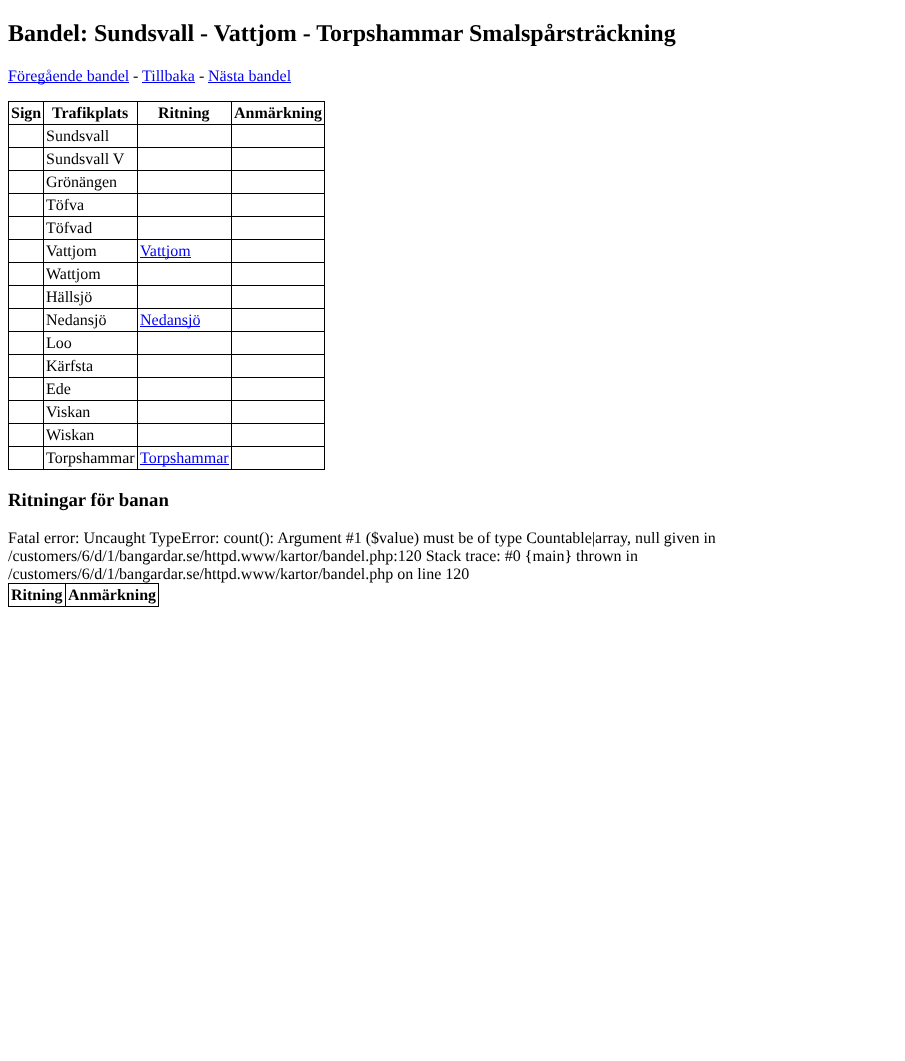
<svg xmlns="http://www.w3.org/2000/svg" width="905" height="1061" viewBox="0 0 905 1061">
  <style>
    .t1 { font: bold 24px Liberation Serif; fill: #000; }
    .t2 { font: 16px Liberation Serif; fill: #00e; }
    .t3 { font: 16px Liberation Serif; fill: #000; }
    .t4 { font: bold 16px Liberation Serif; fill: #000; }
    .t5 { font: bold 18.75px Liberation Serif; fill: #000; }
  </style>
  <rect width="100%" height="100%" fill="#fff"/>
  <text x="8" y="41" class="t1">Bandel: Sundsvall - Vattjom - Torpshammar Smalspårsträckning</text>
  <rect x="8" y="82" width="121" height="1" fill="#00e"/>
  <text x="8" y="81" class="t2">Föregående bandel</text>
  <text x="133" y="81" class="t3">-</text>
  <text x="142" y="81" class="t2">Tillbaka</text>
  <rect x="142" y="82" width="53" height="1" fill="#00e"/>
  <text x="199" y="81" class="t3">-</text>
  <text x="208" y="81" class="t2">Nästa bandel</text>
  <rect x="208" y="82" width="83" height="1" fill="#00e"/>
  <rect x="231" y="101" width="94" height="1" fill="#000"/>
  <rect x="231" y="124" width="94" height="1" fill="#000"/>
  <rect x="231" y="147" width="94" height="1" fill="#000"/>
  <rect x="231" y="170" width="94" height="1" fill="#000"/>
  <rect x="231" y="193" width="94" height="1" fill="#000"/>
  <rect x="231" y="216" width="94" height="1" fill="#000"/>
  <rect x="231" y="239" width="94" height="1" fill="#000"/>
  <rect x="231" y="262" width="94" height="1" fill="#000"/>
  <rect x="231" y="285" width="94" height="1" fill="#000"/>
  <rect x="231" y="308" width="94" height="1" fill="#000"/>
  <rect x="231" y="331" width="94" height="1" fill="#000"/>
  <rect x="231" y="354" width="94" height="1" fill="#000"/>
  <rect x="231" y="377" width="94" height="1" fill="#000"/>
  <rect x="231" y="400" width="94" height="1" fill="#000"/>
  <rect x="231" y="423" width="94" height="1" fill="#000"/>
  <rect x="231" y="446" width="94" height="1" fill="#000"/>
  <rect x="324" y="446" width="1" height="24" fill="#000"/>
  <rect x="231" y="469" width="94" height="1" fill="#000"/>
  <rect x="231" y="446" width="1" height="24" fill="#000"/>
  <rect x="137" y="446" width="95" height="1" fill="#000"/>
  <rect x="231" y="423" width="1" height="24" fill="#000"/>
  <rect x="137" y="423" width="95" height="1" fill="#000"/>
  <rect x="231" y="400" width="1" height="24" fill="#000"/>
  <rect x="137" y="400" width="95" height="1" fill="#000"/>
  <rect x="231" y="377" width="1" height="24" fill="#000"/>
  <rect x="137" y="377" width="95" height="1" fill="#000"/>
  <rect x="231" y="354" width="1" height="24" fill="#000"/>
  <rect x="137" y="354" width="95" height="1" fill="#000"/>
  <rect x="231" y="331" width="1" height="24" fill="#000"/>
  <rect x="137" y="331" width="95" height="1" fill="#000"/>
  <rect x="231" y="308" width="1" height="24" fill="#000"/>
  <rect x="137" y="308" width="95" height="1" fill="#000"/>
  <rect x="231" y="285" width="1" height="24" fill="#000"/>
  <rect x="137" y="285" width="95" height="1" fill="#000"/>
  <rect x="231" y="262" width="1" height="24" fill="#000"/>
  <rect x="137" y="262" width="95" height="1" fill="#000"/>
  <rect x="231" y="239" width="1" height="24" fill="#000"/>
  <rect x="137" y="239" width="95" height="1" fill="#000"/>
  <rect x="231" y="216" width="1" height="24" fill="#000"/>
  <rect x="137" y="216" width="95" height="1" fill="#000"/>
  <rect x="231" y="193" width="1" height="24" fill="#000"/>
  <rect x="137" y="193" width="95" height="1" fill="#000"/>
  <rect x="231" y="170" width="1" height="24" fill="#000"/>
  <rect x="137" y="170" width="95" height="1" fill="#000"/>
  <rect x="231" y="147" width="1" height="24" fill="#000"/>
  <rect x="137" y="147" width="95" height="1" fill="#000"/>
  <rect x="231" y="124" width="1" height="24" fill="#000"/>
  <rect x="137" y="124" width="95" height="1" fill="#000"/>
  <rect x="231" y="101" width="1" height="24" fill="#000"/>
  <rect x="137" y="101" width="95" height="1" fill="#000"/>
  <rect x="137" y="469" width="95" height="1" fill="#000"/>
  <rect x="137" y="446" width="1" height="24" fill="#000"/>
  <rect x="43" y="446" width="95" height="1" fill="#000"/>
  <rect x="137" y="423" width="1" height="24" fill="#000"/>
  <rect x="43" y="423" width="95" height="1" fill="#000"/>
  <rect x="137" y="400" width="1" height="24" fill="#000"/>
  <rect x="43" y="400" width="95" height="1" fill="#000"/>
  <rect x="137" y="377" width="1" height="24" fill="#000"/>
  <rect x="43" y="377" width="95" height="1" fill="#000"/>
  <rect x="137" y="354" width="1" height="24" fill="#000"/>
  <rect x="43" y="354" width="95" height="1" fill="#000"/>
  <rect x="137" y="331" width="1" height="24" fill="#000"/>
  <rect x="43" y="331" width="95" height="1" fill="#000"/>
  <rect x="137" y="308" width="1" height="24" fill="#000"/>
  <rect x="43" y="308" width="95" height="1" fill="#000"/>
  <rect x="137" y="285" width="1" height="24" fill="#000"/>
  <rect x="43" y="285" width="95" height="1" fill="#000"/>
  <rect x="137" y="262" width="1" height="24" fill="#000"/>
  <rect x="43" y="262" width="95" height="1" fill="#000"/>
  <rect x="137" y="239" width="1" height="24" fill="#000"/>
  <rect x="43" y="239" width="95" height="1" fill="#000"/>
  <rect x="137" y="216" width="1" height="24" fill="#000"/>
  <rect x="43" y="216" width="95" height="1" fill="#000"/>
  <rect x="137" y="193" width="1" height="24" fill="#000"/>
  <rect x="43" y="193" width="95" height="1" fill="#000"/>
  <rect x="137" y="170" width="1" height="24" fill="#000"/>
  <rect x="43" y="170" width="95" height="1" fill="#000"/>
  <rect x="137" y="147" width="1" height="24" fill="#000"/>
  <rect x="43" y="147" width="95" height="1" fill="#000"/>
  <rect x="137" y="124" width="1" height="24" fill="#000"/>
  <rect x="43" y="124" width="95" height="1" fill="#000"/>
  <rect x="137" y="101" width="1" height="24" fill="#000"/>
  <rect x="43" y="101" width="95" height="1" fill="#000"/>
  <rect x="43" y="469" width="95" height="1" fill="#000"/>
  <rect x="43" y="446" width="1" height="24" fill="#000"/>
  <rect x="8" y="446" width="36" height="1" fill="#000"/>
  <rect x="43" y="423" width="1" height="24" fill="#000"/>
  <rect x="8" y="423" width="36" height="1" fill="#000"/>
  <rect x="43" y="400" width="1" height="24" fill="#000"/>
  <rect x="8" y="400" width="36" height="1" fill="#000"/>
  <rect x="43" y="377" width="1" height="24" fill="#000"/>
  <rect x="8" y="377" width="36" height="1" fill="#000"/>
  <rect x="43" y="354" width="1" height="24" fill="#000"/>
  <rect x="8" y="354" width="36" height="1" fill="#000"/>
  <rect x="43" y="331" width="1" height="24" fill="#000"/>
  <rect x="8" y="331" width="36" height="1" fill="#000"/>
  <rect x="43" y="308" width="1" height="24" fill="#000"/>
  <rect x="8" y="308" width="36" height="1" fill="#000"/>
  <rect x="43" y="285" width="1" height="24" fill="#000"/>
  <rect x="8" y="285" width="36" height="1" fill="#000"/>
  <rect x="43" y="262" width="1" height="24" fill="#000"/>
  <rect x="8" y="262" width="36" height="1" fill="#000"/>
  <rect x="43" y="239" width="1" height="24" fill="#000"/>
  <rect x="8" y="239" width="36" height="1" fill="#000"/>
  <rect x="43" y="216" width="1" height="24" fill="#000"/>
  <rect x="8" y="216" width="36" height="1" fill="#000"/>
  <rect x="43" y="193" width="1" height="24" fill="#000"/>
  <rect x="8" y="193" width="36" height="1" fill="#000"/>
  <rect x="43" y="170" width="1" height="24" fill="#000"/>
  <rect x="8" y="170" width="36" height="1" fill="#000"/>
  <rect x="43" y="147" width="1" height="24" fill="#000"/>
  <rect x="8" y="147" width="36" height="1" fill="#000"/>
  <rect x="43" y="124" width="1" height="24" fill="#000"/>
  <rect x="8" y="124" width="36" height="1" fill="#000"/>
  <rect x="43" y="101" width="1" height="24" fill="#000"/>
  <rect x="8" y="101" width="36" height="1" fill="#000"/>
  <rect x="8" y="469" width="36" height="1" fill="#000"/>
  <rect x="8" y="446" width="1" height="24" fill="#000"/>
  <rect x="8" y="423" width="1" height="24" fill="#000"/>
  <rect x="8" y="400" width="1" height="24" fill="#000"/>
  <rect x="8" y="377" width="1" height="24" fill="#000"/>
  <rect x="8" y="354" width="1" height="24" fill="#000"/>
  <rect x="8" y="331" width="1" height="24" fill="#000"/>
  <rect x="8" y="308" width="1" height="24" fill="#000"/>
  <rect x="8" y="285" width="1" height="24" fill="#000"/>
  <rect x="8" y="262" width="1" height="24" fill="#000"/>
  <rect x="8" y="239" width="1" height="24" fill="#000"/>
  <rect x="8" y="216" width="1" height="24" fill="#000"/>
  <rect x="8" y="193" width="1" height="24" fill="#000"/>
  <rect x="8" y="170" width="1" height="24" fill="#000"/>
  <rect x="8" y="147" width="1" height="24" fill="#000"/>
  <rect x="8" y="124" width="1" height="24" fill="#000"/>
  <rect x="8" y="101" width="1" height="24" fill="#000"/>
  <text x="11" y="118" class="t4">Sign</text>
  <text x="52" y="118" class="t4">Trafikplats</text>
  <text x="158" y="118" class="t4">Ritning</text>
  <rect x="324" y="423" width="1" height="24" fill="#000"/>
  <rect x="324" y="400" width="1" height="24" fill="#000"/>
  <rect x="324" y="377" width="1" height="24" fill="#000"/>
  <rect x="324" y="354" width="1" height="24" fill="#000"/>
  <rect x="324" y="331" width="1" height="24" fill="#000"/>
  <rect x="324" y="308" width="1" height="24" fill="#000"/>
  <rect x="324" y="285" width="1" height="24" fill="#000"/>
  <rect x="324" y="262" width="1" height="24" fill="#000"/>
  <rect x="324" y="239" width="1" height="24" fill="#000"/>
  <rect x="324" y="216" width="1" height="24" fill="#000"/>
  <rect x="324" y="193" width="1" height="24" fill="#000"/>
  <rect x="324" y="170" width="1" height="24" fill="#000"/>
  <rect x="324" y="147" width="1" height="24" fill="#000"/>
  <rect x="324" y="124" width="1" height="24" fill="#000"/>
  <rect x="324" y="101" width="1" height="24" fill="#000"/>
  <text x="234" y="118" class="t4">Anmärkning</text>
  <text x="46" y="141" class="t3">Sundsvall</text>
  <text x="46" y="164" class="t3">Sundsvall V</text>
  <text x="46" y="187" class="t3">Grönängen</text>
  <text x="46" y="210" class="t3">Töfva</text>
  <text x="46" y="233" class="t3">Töfvad</text>
  <text x="46" y="256" class="t3">Vattjom</text>
  <rect x="140" y="257" width="51" height="1" fill="#00e"/>
  <text x="140" y="256" class="t2">Vattjom</text>
  <text x="46" y="279" class="t3">Wattjom</text>
  <text x="46" y="302" class="t3">Hällsjö</text>
  <text x="46" y="325" class="t3">Nedansjö</text>
  <rect x="140" y="326" width="60" height="1" fill="#00e"/>
  <text x="140" y="325" class="t2">Nedansjö</text>
  <text x="46" y="348" class="t3">Loo</text>
  <text x="46" y="371" class="t3">Kärfsta</text>
  <text x="46" y="394" class="t3">Ede</text>
  <text x="46" y="417" class="t3">Viskan</text>
  <text x="46" y="440" class="t3">Wiskan</text>
  <text x="46" y="463" class="t3">Torpshammar</text>
  <rect x="140" y="464" width="89" height="1" fill="#00e"/>
  <text x="140" y="463" class="t2">Torpshammar</text>
  <text x="8" y="506" class="t5">Ritningar för banan</text>
  <text x="8" y="543" class="t3">Fatal error: Uncaught TypeError: count(): Argument #1 ($value) must be of type Countable|array, null given in</text>
  <text x="8" y="561" class="t3">/customers/6/d/1/bangardar.se/httpd.www/kartor/bandel.php:120 Stack trace: #0 {main} thrown in</text>
  <text x="8" y="579" class="t3">/customers/6/d/1/bangardar.se/httpd.www/kartor/bandel.php on line 120</text>
  <rect x="65" y="583" width="94" height="1" fill="#000"/>
  <rect x="158" y="583" width="1" height="24" fill="#000"/>
  <rect x="65" y="606" width="94" height="1" fill="#000"/>
  <rect x="65" y="583" width="1" height="24" fill="#000"/>
  <rect x="8" y="583" width="58" height="1" fill="#000"/>
  <rect x="8" y="606" width="58" height="1" fill="#000"/>
  <rect x="8" y="583" width="1" height="24" fill="#000"/>
  <text x="11" y="600" class="t4">Ritning</text>
  <text x="68" y="600" class="t4">Anmärkning</text>
</svg>
